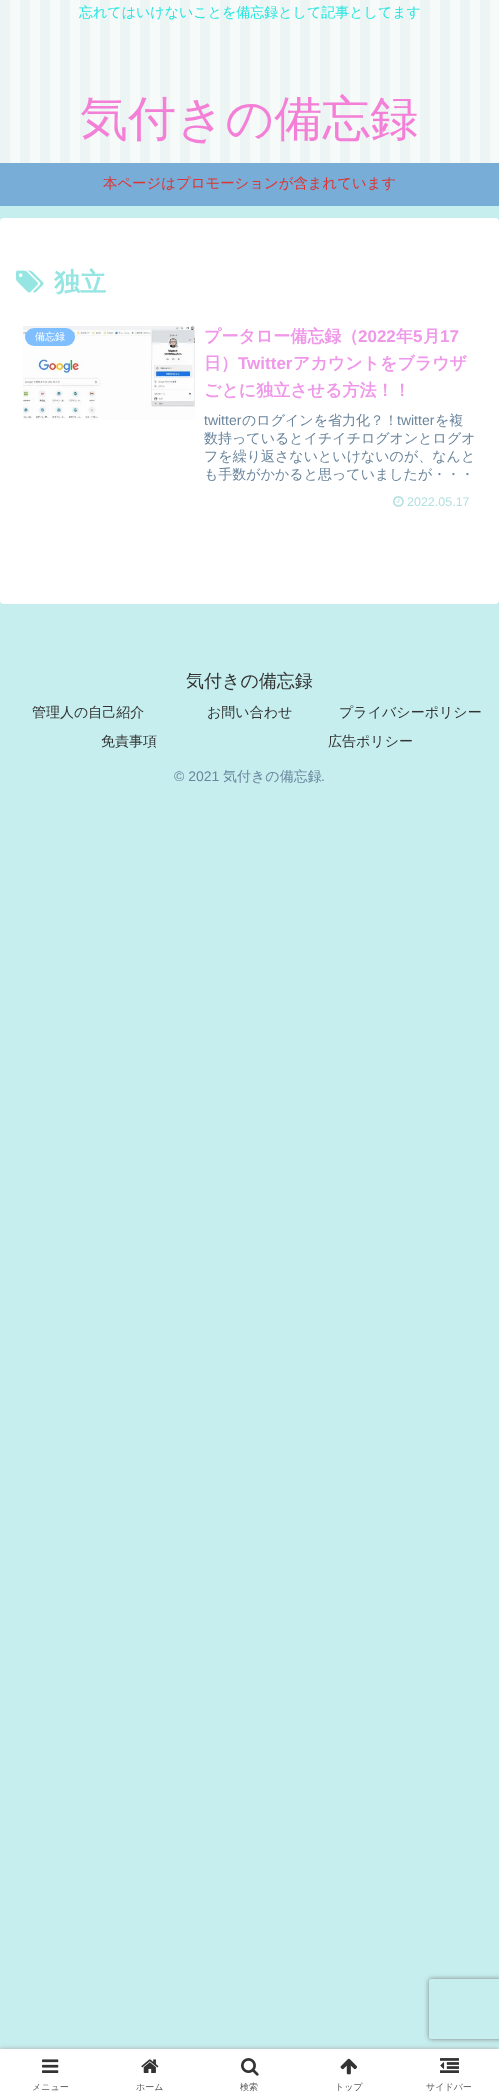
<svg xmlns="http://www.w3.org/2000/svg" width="499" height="2099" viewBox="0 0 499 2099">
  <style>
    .t1 { font: 500 14px WenQuanYi Zen Hei; fill: #24e5df; }
    .t2 { font: 500 48px WenQuanYi Zen Hei; fill: #f47fd7; }
    .t3 { font: 500 14.4px WenQuanYi Zen Hei; fill: #d33; }
    .t4 { font: bold 26px WenQuanYi Zen Hei; fill: #95e5e2; }
    .t5 { font: 500 10px WenQuanYi Zen Hei; fill: #fff; }
    .t6 { font: bold 17px WenQuanYi Zen Hei; fill: #ef97e8; }
    .t7 { font: bold 17px Liberation Sans; fill: #ef97e8; }
    .t8 { font: 14px Liberation Sans; fill: #6a859c; }
    .t9 { font: 500 14px WenQuanYi Zen Hei; fill: #6a859c; }
    .t10 { font: 12.5px Liberation Sans; fill: #b2e0df; }
    .t11 { font: 500 18px WenQuanYi Zen Hei; fill: #333; }
    .t12 { font: 500 14px WenQuanYi Zen Hei; fill: #333; }
    .t13 { font: 500 9px WenQuanYi Zen Hei; fill: #5c5c5c; }
  </style>
  <defs>
    <clipPath id="clip1"><path d="M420 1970H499V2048H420ZM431 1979H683C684 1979 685 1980 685 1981V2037C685 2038 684 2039 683 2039H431C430 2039 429 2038 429 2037V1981C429 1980 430 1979 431 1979Z" clip-rule="evenodd"/></clipPath>
  </defs>
  <rect width="100%" height="100%" fill="#c6eeee"/>
  <image x="0" y="0" width="499" height="163" href="images/1.png"/>
  <text x="79" y="17" class="t1">忘れてはいけないことを備忘録として記事としてます</text>
  <text x="80" y="135" class="t2">気付きの備忘録</text>
  <rect x="0" y="163" width="499" height="43" fill="#77add6"/>
  <text x="103" y="188" class="t3">本ページはプロモーションが含まれています</text>
  <rect x="0" y="218" width="499" height="386" rx="4" fill="#fff"/>
  <image x="16" y="270" width="28" height="23" href="images/2.png"/>
  <text x="54" y="291" class="t4">独立</text>
  <image x="23" y="326" width="172" height="94" href="images/3.png"/>
  <rect x="25" y="328" width="50" height="18" rx="9" fill="#7fbfff"/>
  <text x="35" y="340" class="t5">備忘録</text>
  <text x="204" y="342" class="t6">プータロー備忘録（</text>
  <text x="358" y="342" class="t7">2022</text>
  <text x="396" y="342" class="t6">年</text>
  <text x="413" y="342" class="t7">5</text>
  <text x="423" y="342" class="t6">月</text>
  <text x="440" y="342" class="t7">17</text>
  <text x="204" y="369" class="t6">日）</text>
  <text x="238" y="369" class="t7">Twitter</text>
  <text x="293" y="369" class="t6">アカウントをブラウザ</text>
  <text x="204" y="396" class="t6">ごとに独立させる方法！！</text>
  <text x="204" y="425" class="t8">twitter</text>
  <text x="242" y="425" class="t9">のログインを省力化？！</text>
  <text x="397" y="425" class="t8">twitter</text>
  <text x="435" y="425" class="t9">を複</text>
  <text x="204" y="443" class="t9">数持っているとイチイチログオンとログオ</text>
  <text x="204" y="461" class="t9">フを繰り返さないといけないのが、なんと</text>
  <text x="204" y="479" class="t9">も手数がかかると思っていましたが・・・</text>
  <image x="393" y="496" width="11" height="11" href="images/4.png"/>
  <text x="407" y="506" class="t10">2022.05.17</text>
  <text x="186" y="687" class="t11">気付きの備忘録</text>
  <text x="32" y="717" class="t12">管理人の自己紹介</text>
  <text x="207" y="717" class="t12">お問い合わせ</text>
  <text x="339" y="717" class="t12">プライバシーポリシー</text>
  <text x="101" y="746" class="t12">免責事項</text>
  <text x="328" y="746" class="t12">広告ポリシー</text>
  <text x="174" y="781" class="t8">© 2021</text>
  <text x="223" y="781" class="t9">気付きの備忘録</text>
  <text x="321" y="781" class="t8">.</text>
  <rect x="0" y="2049" width="499" height="50" fill="#a9a9a9" filter="blur(2.5px)"/>
  <rect x="0" y="2049" width="499" height="50" fill="#fff"/>
  <image x="42" y="2059" width="17" height="14" href="images/5.png"/>
  <text x="32" y="2090" class="t13">メニュー</text>
  <image x="141" y="2059" width="18" height="14" href="images/6.png"/>
  <text x="136" y="2090" class="t13">ホーム</text>
  <image x="241" y="2058" width="18" height="18" href="images/7.png"/>
  <text x="240" y="2090" class="t13">検索</text>
  <image x="340" y="2058" width="17" height="17" href="images/8.png"/>
  <text x="335" y="2090" class="t13">トップ</text>
  <image x="440" y="2058" width="19" height="15" href="images/9.png"/>
  <text x="426" y="2090" class="t13">サイドバー</text>
  <g clip-path="url(#clip1)">
    <rect x="429" y="1979" width="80" height="60" rx="2" fill="#808080" filter="blur(2.5px)"/>
  </g>
</svg>
